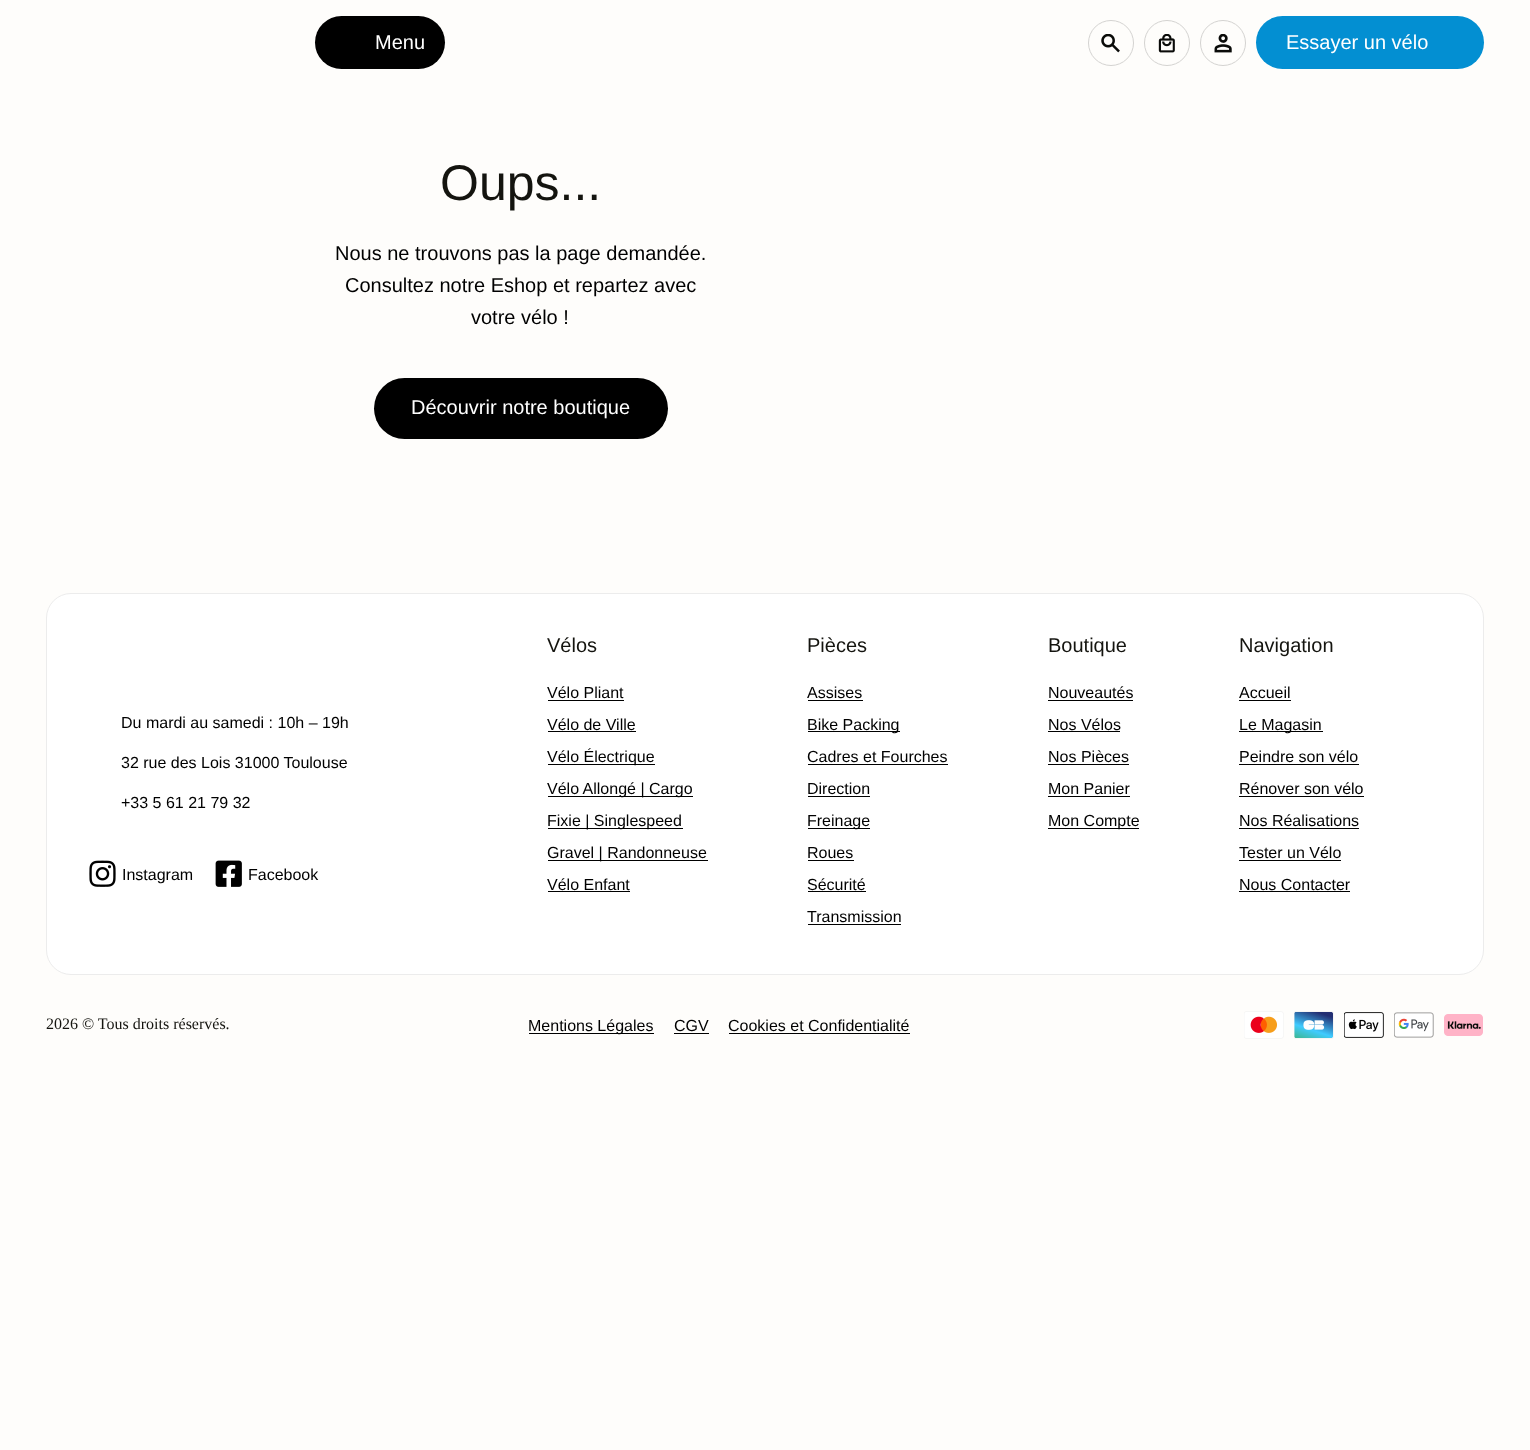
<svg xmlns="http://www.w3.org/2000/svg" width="1530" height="1450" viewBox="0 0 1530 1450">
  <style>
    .t1 { font: 20px Liberation Sans; fill: #fff; }
    .t2 { font: 50px Liberation Sans; fill: #14140f; }
    .t3 { font: 20px Liberation Sans; fill: #000; }
    .t4 { font: 16px Liberation Sans; fill: #000; }
    .t5 { font: 20px Liberation Sans; fill: #14140f; }
    .t6 { font: 16px Liberation Serif; fill: #14140f; }
  </style>
  <rect width="100%" height="100%" fill="#fefdfb"/>
  <rect x="315" y="16" width="130" height="53" rx="26.5" fill="#000"/>
  <text x="375" y="49" class="t1">Menu</text>
  <circle cx="1111" cy="43" r="22.5" fill="none" stroke="#d4d3d1"/>
  <image x="1101" y="34" width="19" height="19" href="images/1.png"/>
  <circle cx="1167" cy="43" r="22.5" fill="none" stroke="#d4d3d1"/>
  <image x="1158" y="34" width="17" height="19" href="images/2.png"/>
  <circle cx="1223" cy="43" r="22.5" fill="none" stroke="#d4d3d1"/>
  <image x="1214" y="34" width="18" height="19" href="images/3.png"/>
  <rect x="1256" y="16" width="228" height="53" rx="26.5" fill="#038fd2"/>
  <text x="1286" y="49" class="t1">Essayer un vélo</text>
  <text x="440" y="200" class="t2">Oups...</text>
  <text x="335" y="260" class="t3">Nous ne trouvons pas la page demandée.</text>
  <text x="345" y="292" class="t3">Consultez notre Eshop et repartez avec</text>
  <text x="471" y="324" class="t3">votre vélo !</text>
  <rect x="374" y="378" width="294" height="61" rx="30.5" fill="#000"/>
  <text x="411" y="414" class="t1">Découvrir notre boutique</text>
  <rect x="46.5" y="593.5" width="1437" height="381" rx="24.5" fill="#fff" stroke="#ececec"/>
  <text x="121" y="728" class="t4">Du mardi au samedi : 10h – 19h</text>
  <text x="121" y="768" class="t4">32 rue des Lois 31000 Toulouse</text>
  <text x="121" y="808" class="t4">+33 5 61 21 79 32</text>
  <image x="89" y="860" width="27" height="27" href="images/4.png"/>
  <text x="122" y="880" class="t4">Instagram</text>
  <image x="215" y="860" width="27" height="27" href="images/5.png"/>
  <text x="248" y="880" class="t4">Facebook</text>
  <text x="547" y="652" class="t5">Vélos</text>
  <text x="547" y="698" class="t4">Vélo Pliant</text>
  <rect x="548" y="700" width="76" height="1" fill="#000"/>
  <text x="547" y="730" class="t4">Vélo de Ville</text>
  <rect x="548" y="731" width="88" height="1" fill="#000"/>
  <rect x="548" y="764" width="107" height="1" fill="#000"/>
  <text x="547" y="762" class="t4">Vélo Électrique</text>
  <rect x="548" y="796" width="145" height="1" fill="#000"/>
  <text x="547" y="794" class="t4">Vélo Allongé | Cargo</text>
  <rect x="548" y="828" width="135" height="1" fill="#000"/>
  <text x="547" y="826" class="t4">Fixie | Singlespeed</text>
  <rect x="548" y="860" width="160" height="1" fill="#000"/>
  <text x="547" y="858" class="t4">Gravel | Randonneuse</text>
  <text x="547" y="890" class="t4">Vélo Enfant</text>
  <rect x="548" y="891" width="82" height="1" fill="#000"/>
  <text x="807" y="652" class="t5">Pièces</text>
  <text x="807" y="698" class="t4">Assises</text>
  <rect x="808" y="700" width="55" height="1" fill="#000"/>
  <rect x="808" y="731" width="92" height="1" fill="#000"/>
  <text x="807" y="730" class="t4">Bike Packing</text>
  <text x="807" y="762" class="t4">Cadres et Fourches</text>
  <rect x="808" y="764" width="140" height="1" fill="#000"/>
  <text x="807" y="794" class="t4">Direction</text>
  <rect x="808" y="796" width="62" height="1" fill="#000"/>
  <rect x="808" y="828" width="62" height="1" fill="#000"/>
  <text x="807" y="826" class="t4">Freinage</text>
  <text x="807" y="858" class="t4">Roues</text>
  <rect x="808" y="860" width="46" height="1" fill="#000"/>
  <text x="807" y="890" class="t4">Sécurité</text>
  <rect x="808" y="891" width="58" height="1" fill="#000"/>
  <text x="807" y="922" class="t4">Transmission</text>
  <rect x="808" y="924" width="93" height="1" fill="#000"/>
  <text x="1048" y="652" class="t5">Boutique</text>
  <text x="1048" y="698" class="t4">Nouveautés</text>
  <rect x="1048" y="700" width="85" height="1" fill="#000"/>
  <text x="1048" y="730" class="t4">Nos Vélos</text>
  <rect x="1048" y="731" width="72" height="1" fill="#000"/>
  <text x="1048" y="762" class="t4">Nos Pièces</text>
  <rect x="1048" y="764" width="81" height="1" fill="#000"/>
  <text x="1048" y="794" class="t4">Mon Panier</text>
  <rect x="1048" y="796" width="82" height="1" fill="#000"/>
  <rect x="1048" y="828" width="91" height="1" fill="#000"/>
  <text x="1048" y="826" class="t4">Mon Compte</text>
  <text x="1239" y="652" class="t5">Navigation</text>
  <text x="1239" y="698" class="t4">Accueil</text>
  <rect x="1239" y="700" width="52" height="1" fill="#000"/>
  <rect x="1239" y="731" width="84" height="1" fill="#000"/>
  <text x="1239" y="730" class="t4">Le Magasin</text>
  <text x="1239" y="762" class="t4">Peindre son vélo</text>
  <rect x="1239" y="764" width="120" height="1" fill="#000"/>
  <text x="1239" y="794" class="t4">Rénover son vélo</text>
  <rect x="1239" y="796" width="125" height="1" fill="#000"/>
  <text x="1239" y="826" class="t4">Nos Réalisations</text>
  <rect x="1239" y="828" width="120" height="1" fill="#000"/>
  <text x="1239" y="858" class="t4">Tester un Vélo</text>
  <rect x="1239" y="860" width="102" height="1" fill="#000"/>
  <text x="1239" y="890" class="t4">Nous Contacter</text>
  <rect x="1239" y="891" width="111" height="1" fill="#000"/>
  <text x="46" y="1029" class="t6">2026 © Tous droits réservés.</text>
  <rect x="529" y="1033" width="125" height="1" fill="#000"/>
  <text x="528" y="1031" class="t4">Mentions Légales</text>
  <text x="674" y="1031" class="t4">CGV</text>
  <rect x="674" y="1033" width="35" height="1" fill="#000"/>
  <text x="728" y="1031" class="t4">Cookies et Confidentialité</text>
  <rect x="729" y="1033" width="181" height="1" fill="#000"/>
  <image x="1244" y="1011" width="40" height="28" href="images/6.png"/>
  <image x="1294" y="1011" width="40" height="28" href="images/7.png"/>
  <image x="1344" y="1012" width="40" height="26" href="images/8.png"/>
  <image x="1394" y="1012" width="40" height="26" href="images/9.png"/>
  <image x="1444" y="1014" width="39" height="22" href="images/10.png"/>
</svg>
